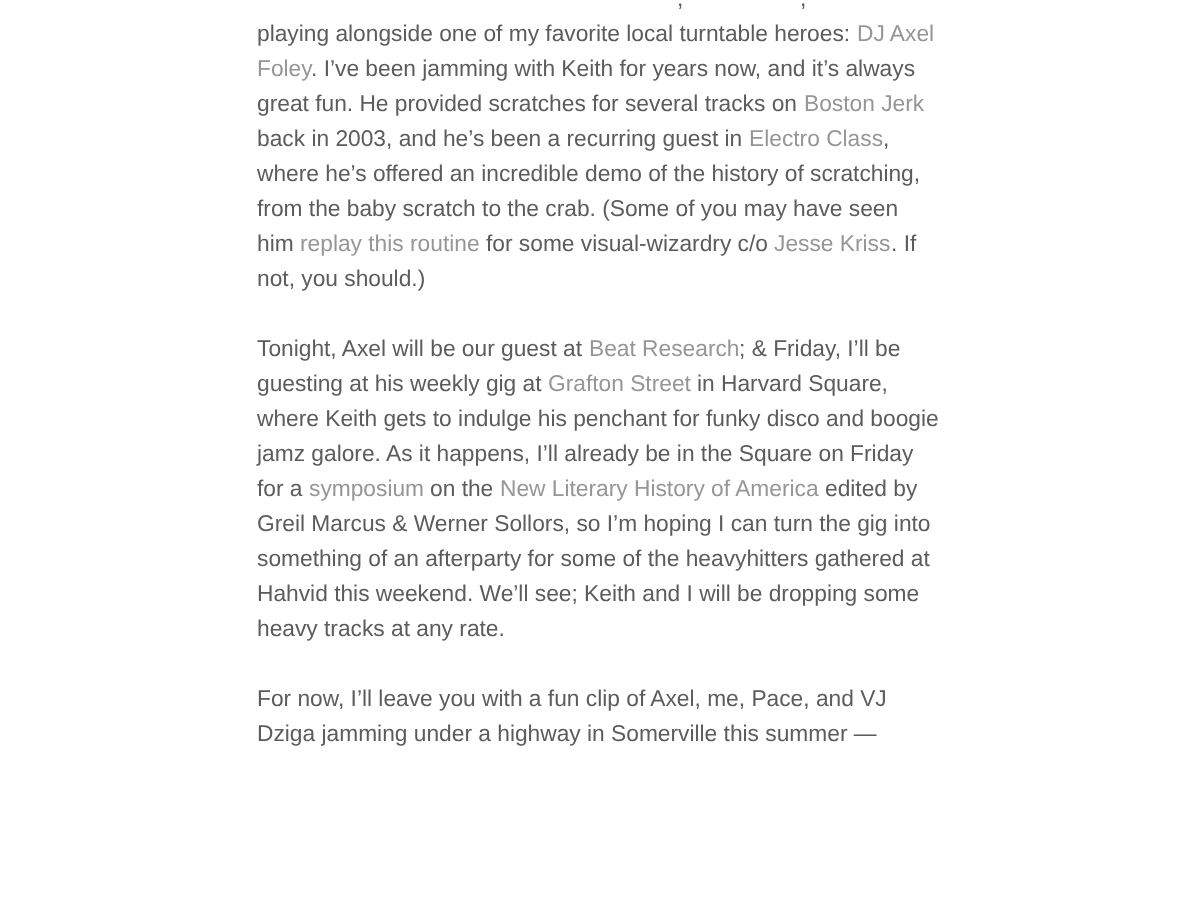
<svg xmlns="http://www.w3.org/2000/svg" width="1197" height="901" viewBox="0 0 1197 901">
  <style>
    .t1 { font: 22.75px Liberation Sans; fill: #5c5c5c; }
    .t2 { font: 22.75px Liberation Sans; fill: #969696; }
  </style>
  <rect width="100%" height="100%" fill="#fff"/>
  <text x="677" y="6" class="t1">,</text>
  <text x="800" y="6" class="t1">,</text>
  <text x="257" y="41" class="t1">playing alongside one of my favorite local turntable heroes:</text>
  <text x="857" y="41" class="t2">DJ Axel</text>
  <text x="257" y="76" class="t2">Foley</text>
  <text x="311" y="76" class="t1">. I’ve been jamming with Keith for years now, and it’s always</text>
  <text x="257" y="111" class="t1">great fun. He provided scratches for several tracks on</text>
  <text x="804" y="111" class="t2">Boston Jerk</text>
  <text x="257" y="146" class="t1">back in 2003, and he’s been a recurring guest in</text>
  <text x="749" y="146" class="t2">Electro Class</text>
  <text x="883" y="146" class="t1">,</text>
  <text x="257" y="181" class="t1">where he’s offered an incredible demo of the history of scratching,</text>
  <text x="257" y="216" class="t1">from the baby scratch to the crab. (Some of you may have seen</text>
  <text x="257" y="251" class="t1">him</text>
  <text x="300" y="251" class="t2">replay this routine</text>
  <text x="486" y="251" class="t1">for some visual-wizardry c/o</text>
  <text x="774" y="251" class="t2">Jesse Kriss</text>
  <text x="891" y="251" class="t1">. If</text>
  <text x="257" y="286" class="t1">not, you should.)</text>
  <text x="257" y="356" class="t1">Tonight, Axel will be our guest at</text>
  <text x="589" y="356" class="t2">Beat Research</text>
  <text x="739" y="356" class="t1">; &amp; Friday, I’ll be</text>
  <text x="257" y="391" class="t1">guesting at his weekly gig at</text>
  <text x="548" y="391" class="t2">Grafton Street</text>
  <text x="697" y="391" class="t1">in Harvard Square,</text>
  <text x="257" y="426" class="t1">where Keith gets to indulge his penchant for funky disco and boogie</text>
  <text x="257" y="461" class="t1">jamz galore. As it happens, I’ll already be in the Square on Friday</text>
  <text x="257" y="496" class="t1">for a</text>
  <text x="309" y="496" class="t2">symposium</text>
  <text x="430" y="496" class="t1">on the</text>
  <text x="500" y="496" class="t2">New Literary History of America</text>
  <text x="825" y="496" class="t1">edited by</text>
  <text x="257" y="531" class="t1">Greil Marcus &amp; Werner Sollors, so I’m hoping I can turn the gig into</text>
  <text x="257" y="566" class="t1">something of an afterparty for some of the heavyhitters gathered at</text>
  <text x="257" y="601" class="t1">Hahvid this weekend. We’ll see; Keith and I will be dropping some</text>
  <text x="257" y="636" class="t1">heavy tracks at any rate.</text>
  <text x="257" y="706" class="t1">For now, I’ll leave you with a fun clip of Axel, me, Pace, and VJ</text>
  <text x="257" y="741" class="t1">Dziga jamming under a highway in Somerville this summer —</text>
</svg>
